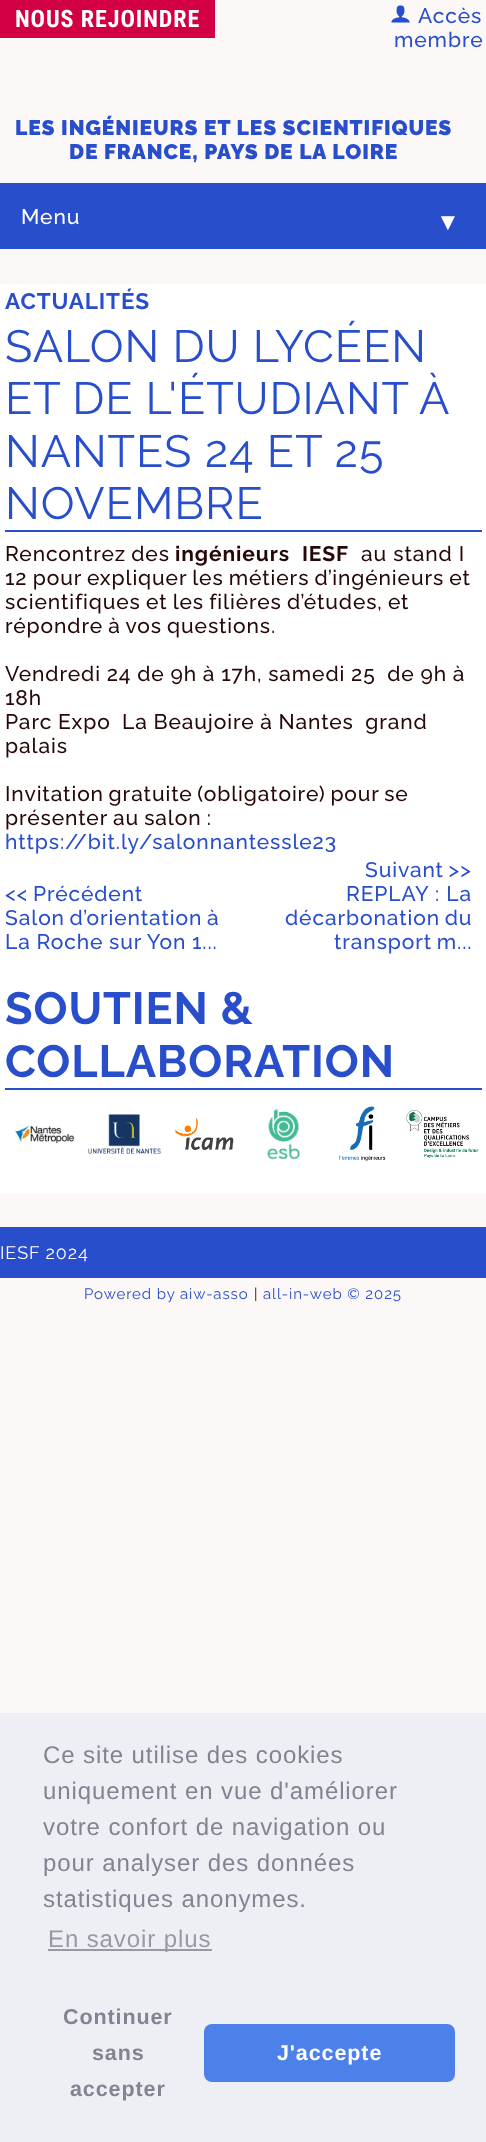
<svg xmlns="http://www.w3.org/2000/svg" width="486" height="2142" viewBox="0 0 486 2142">
  <style>
    .t1 { font: bold 24px Roboto Condensed; letter-spacing: 0.9px; fill: #fff; }
    .t2 { font: 500 21px Raleway; letter-spacing: 0.9px; fill: #294ecb; }
    .t3 { font: 900 21px Raleway; letter-spacing: 0.9px; fill: #294ecb; }
    .t4 { font: 500 21px Raleway; letter-spacing: 0.9px; fill: #fff; }
    .t5 { font: italic 24px Liberation Sans; letter-spacing: 0.9px; fill: #fff; }
    .t6 { font: bold 22.5px Raleway; letter-spacing: 0.9px; fill: #294ecb; }
    .t7 { font: 45px Raleway; letter-spacing: 0.9px; fill: #294ecb; }
    .t8 { font: 500 21px Raleway; letter-spacing: 0.9px; fill: #260808; }
    .t9 { font: bold 21px Raleway; letter-spacing: 0.9px; fill: #260808; }
    .t10 { font: bold 45px Raleway; letter-spacing: 0.9px; fill: #294ecb; }
    .t11 { font: 18px Raleway; letter-spacing: 0.9px; fill: #fff; }
    .t12 { font: 15px Raleway; letter-spacing: 0.9px; fill: #294ecb; }
    .t13 { font: 15px Raleway; letter-spacing: 0.9px; fill: #260808; }
    .t14 { font: 24px Liberation Sans; letter-spacing: 0.9px; fill: #838391; }
    .t15 { font: 24px Liberation Sans; letter-spacing: 0.9px; fill: #9899a5; }
    .t16 { font: bold 21.5px Liberation Sans; letter-spacing: 0.9px; fill: #838391; }
    .t17 { font: bold 21.5px Liberation Sans; letter-spacing: 0.9px; fill: #fff; }
  </style>
  <rect width="100%" height="100%" fill="#fbf8f7"/>
  <rect x="0" y="0" width="215" height="38" fill="#d20043"/>
  <text x="15" y="27" class="t1">NOUS REJOINDRE</text>
  <image x="391" y="5" width="19" height="18" href="images/1.png"/>
  <text x="418" y="23" class="t2">Accès</text>
  <text x="394" y="47" class="t2">membre</text>
  <text x="15" y="135" class="t3">LES INGÉNIEURS ET LES SCIENTIFIQUES</text>
  <text x="69" y="159" class="t3">DE FRANCE, PAYS DE LA LOIRE</text>
  <rect x="0" y="183" width="486" height="66" fill="#294ecb"/>
  <text x="21" y="224" class="t4">Menu</text>
  <text x="436" y="230" class="t5">▼</text>
  <rect x="0" y="284" width="486" height="910" fill="#fff"/>
  <text x="5" y="309" class="t6">ACTUALITÉS</text>
  <rect x="5" y="530" width="477" height="2" fill="#294ecb"/>
  <text x="5" y="362" class="t7">SALON DU LYCÉEN</text>
  <text x="5" y="414" word-spacing="-0.5" class="t7">ET DE L'ÉTUDIANT À</text>
  <text x="5" y="467" class="t7">NANTES 24 ET 25</text>
  <text x="5" y="519" class="t7">NOVEMBRE</text>
  <text x="5" y="561" word-spacing="-1" class="t8">Rencontrez des</text>
  <text x="175" y="561" class="t9" xml:space="preserve">ingénieurs  IESF</text>
  <text x="361" y="561" class="t8">au stand I</text>
  <text x="5" y="585" word-spacing="-1" class="t8">12 pour expliquer les métiers d’ingénieurs et</text>
  <text x="5" y="609" word-spacing="-1" class="t8">scientifiques et les filières d’études, et</text>
  <text x="5" y="633" word-spacing="-1" class="t8">répondre à vos questions.</text>
  <text x="5" y="681" word-spacing="-0.4" class="t8" xml:space="preserve">Vendredi 24 de 9h à 17h, samedi 25  de 9h à</text>
  <text x="5" y="705" class="t8">18h</text>
  <text x="5" y="729" word-spacing="-0.5" class="t8" xml:space="preserve">Parc Expo  La Beaujoire à Nantes  grand</text>
  <text x="5" y="753" class="t8">palais</text>
  <text x="5" y="801" word-spacing="-1.5" class="t8">Invitation gratuite (obligatoire) pour se</text>
  <text x="5" y="825" word-spacing="-1" class="t8">présenter au salon :</text>
  <text x="5" y="849" class="t2">https://bit.ly/salonnantessle23</text>
  <text x="5" y="901" word-spacing="-1.5" class="t2">&lt;&lt; Précédent</text>
  <text x="5" y="925" word-spacing="-1.5" class="t2">Salon d’orientation à</text>
  <text x="5" y="949" word-spacing="-0.5" class="t2">La Roche sur Yon 1...</text>
  <text x="365" y="877" word-spacing="-1.5" class="t2">Suivant &gt;&gt;</text>
  <text x="346" y="901" class="t2">REPLAY : La</text>
  <text x="285" y="925" word-spacing="-1.5" class="t2">décarbonation du</text>
  <text x="334" y="949" word-spacing="-1.5" class="t2">transport m...</text>
  <rect x="5" y="1088" width="477" height="2" fill="#294ecb"/>
  <text x="5" y="1024" class="t10">SOUTIEN &amp;</text>
  <text x="5" y="1077" class="t10">COLLABORATION</text>
  <image x="15" y="1125" width="60" height="19" href="images/2.png"/>
  <image x="88" y="1114" width="73" height="40" href="images/3.png"/>
  <image x="174" y="1118" width="60" height="32" href="images/4.png"/>
  <image x="267" y="1108" width="34" height="52" href="images/5.png"/>
  <image x="339" y="1106" width="47" height="55" href="images/6.png"/>
  <image x="406" y="1110" width="73" height="48" href="images/7.png"/>
  <rect x="0" y="1227" width="486" height="51" fill="#294ecb"/>
  <text x="0" y="1259" class="t11">IESF 2024</text>
  <text x="84" y="1299" class="t12">Powered by aiw-asso</text>
  <text x="254" y="1299" class="t13">|</text>
  <text x="263" y="1299" class="t12">all-in-web © 2025</text>
  <rect x="0" y="1713" width="486" height="429" fill="#edeff5"/>
  <text x="43" y="1763" class="t14">Ce site utilise des cookies</text>
  <text x="43" y="1799" class="t14">uniquement en vue d'améliorer</text>
  <text x="43" y="1835" class="t14">votre confort de navigation ou</text>
  <text x="43" y="1871" class="t14">pour analyser des données</text>
  <text x="43" y="1907" class="t14">statistiques anonymes.</text>
  <rect x="48" y="1949" width="164" height="2" fill="#9899a5"/>
  <text x="48" y="1947" class="t15">En savoir plus</text>
  <text x="63" y="2024" class="t16">Continuer</text>
  <text x="92" y="2060" class="t16">sans</text>
  <text x="70" y="2096" class="t16">accepter</text>
  <rect x="204" y="2024" width="251" height="58" rx="8" fill="#4b81e8"/>
  <text x="277" y="2060" class="t17">J'accepte</text>
</svg>
